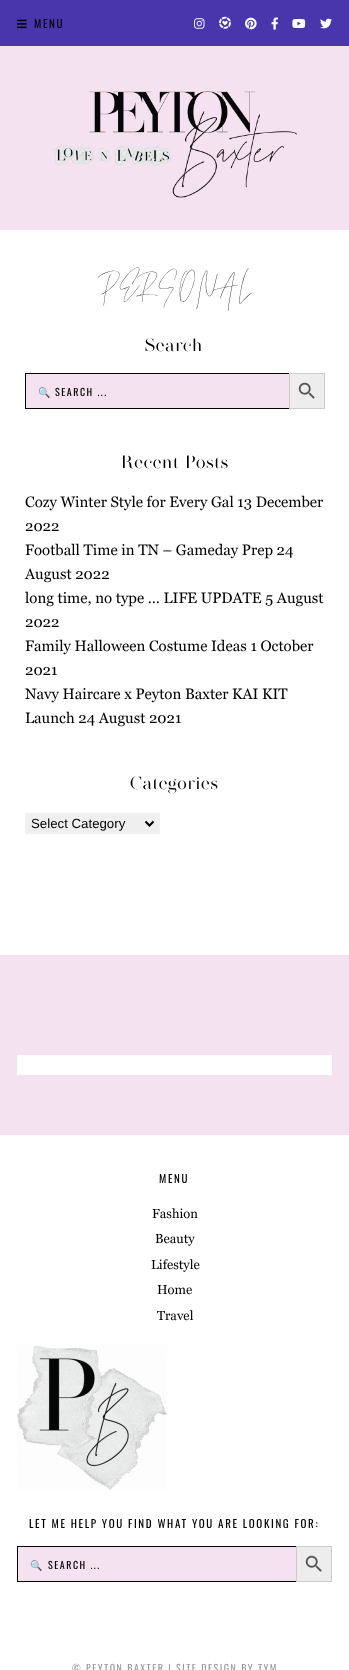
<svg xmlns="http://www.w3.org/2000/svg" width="349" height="1670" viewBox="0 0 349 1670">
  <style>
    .t1 { font: 11px Oswald; letter-spacing: 1.65px; fill: #000; }
    .t2 { font: 32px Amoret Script; letter-spacing: 1.5px; fill: #000; }
    .t3 { font: 18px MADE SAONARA; letter-spacing: 0.9px; fill: #000; }
    .t4 { font: 10px Noto Color Emoji; letter-spacing: 1.5px; fill: #000; }
    .t5 { font: 10px Oswald; letter-spacing: 1.5px; fill: #000; }
    .t6 { font: 15px Georgia; fill: #000; }
    .t7 { font: 13.25px Liberation Sans; fill: #000; }
    .t8 { font: 13px Georgia; fill: #000; }
    .t9 { font: 10px Oswald; letter-spacing: 1.5px; fill: #9b9b9b; }
  </style>
  <defs>
    <clipPath id="clip1"><rect x="38" y="384" width="239" height="15"/></clipPath>
  </defs>
  <rect width="100%" height="100%" fill="#fff"/>
  <rect x="0" y="0" width="349" height="46" fill="#4935ac"/>
  <image x="17" y="19" width="10" height="10" href="images/1.png"/>
  <text x="34" y="28" class="t1">MENU</text>
  <image x="194" y="18" width="11" height="11" href="images/2.png"/>
  <image x="219" y="16" width="12" height="13" href="images/3.png"/>
  <image x="245" y="17" width="12" height="13" href="images/4.png"/>
  <image x="271" y="17" width="7" height="13" href="images/5.png"/>
  <image x="292" y="19" width="14" height="9" href="images/6.png"/>
  <image x="320" y="18" width="12" height="11" href="images/7.png"/>
  <rect x="0" y="46" width="349" height="184" fill="#f5e2f0"/>
  <image x="52" y="91" width="245" height="107" href="images/8.png"/>
  <text x="101" y="295" class="t2">PERSONAL</text>
  <text x="145" y="351" class="t3">Search</text>
  <rect x="26" y="374" width="263" height="34" fill="#f5e2f0"/>
  <rect x="25" y="373" width="264" height="1" fill="#000"/>
  <rect x="25" y="408" width="264" height="1" fill="#000"/>
  <rect x="25" y="373" width="1" height="36" fill="#000"/>
  <g clip-path="url(#clip1)">
    <text x="38" y="396" class="t4">🔍</text>
  </g>
  <text x="55" y="396" class="t5">SEARCH ...</text>
  <rect x="289.5" y="373.5" width="35" height="35" fill="#ededed" stroke="#ccc"/>
  <image x="298" y="382" width="17" height="17" href="images/9.png"/>
  <text x="121" y="468" class="t3">Recent Posts</text>
  <text x="25" y="507" class="t6">Cozy Winter Style for Every Gal 13 December</text>
  <text x="25" y="531" class="t6">2022</text>
  <text x="25" y="555" class="t6">Football Time in TN – Gameday Prep 24</text>
  <text x="25" y="579" class="t6">August 2022</text>
  <text x="25" y="603" class="t6">long time, no type … LIFE UPDATE 5 August</text>
  <text x="25" y="627" class="t6">2022</text>
  <text x="25" y="651" class="t6">Family Halloween Costume Ideas 1 October</text>
  <text x="25" y="675" class="t6">2021</text>
  <text x="25" y="699" class="t6">Navy Haircare x Peyton Baxter KAI KIT</text>
  <text x="25" y="723" class="t6">Launch 24 August 2021</text>
  <text x="130" y="789" class="t3">Categories</text>
  <rect x="26" y="814" width="133" height="19" fill="#efefef" stroke="#f1f1f1" stroke-width="2"/>
  <path d="M145.5 821.5L149.5 825.5L153.5 821.5" fill="none" stroke="#000" stroke-width="2"/>
  <text x="31" y="828" class="t7">Select Category</text>
  <rect x="0" y="955" width="349" height="180" fill="#f5e2f0"/>
  <rect x="17" y="1055" width="315" height="20" fill="#fff"/>
  <text x="159" y="1183" class="t1">MENU</text>
  <text x="152" y="1218" class="t8">Fashion</text>
  <text x="155" y="1243" class="t8">Beauty</text>
  <text x="151" y="1269" class="t8">Lifestyle</text>
  <text x="157" y="1294" class="t8">Home</text>
  <text x="157" y="1320" class="t8">Travel</text>
  <image x="17" y="1345" width="150" height="145" href="images/10.png"/>
  <text x="29" y="1528" class="t1">LET ME HELP YOU FIND WHAT YOU ARE LOOKING FOR:</text>
  <rect x="18" y="1547" width="278" height="34" fill="#f5e2f0"/>
  <rect x="17" y="1546" width="279" height="1" fill="#000"/>
  <rect x="17" y="1581" width="279" height="1" fill="#000"/>
  <rect x="17" y="1546" width="1" height="36" fill="#000"/>
  <text x="30" y="1569" class="t4">🔍</text>
  <text x="48" y="1569" class="t5">SEARCH ...</text>
  <rect x="296.5" y="1546.5" width="35" height="35" fill="#ededed" stroke="#ccc"/>
  <image x="305" y="1555" width="17" height="17" href="images/9.png"/>
  <text x="72" y="1672" class="t9">© PEYTON BAXTER | SITE DESIGN BY TYM</text>
</svg>
